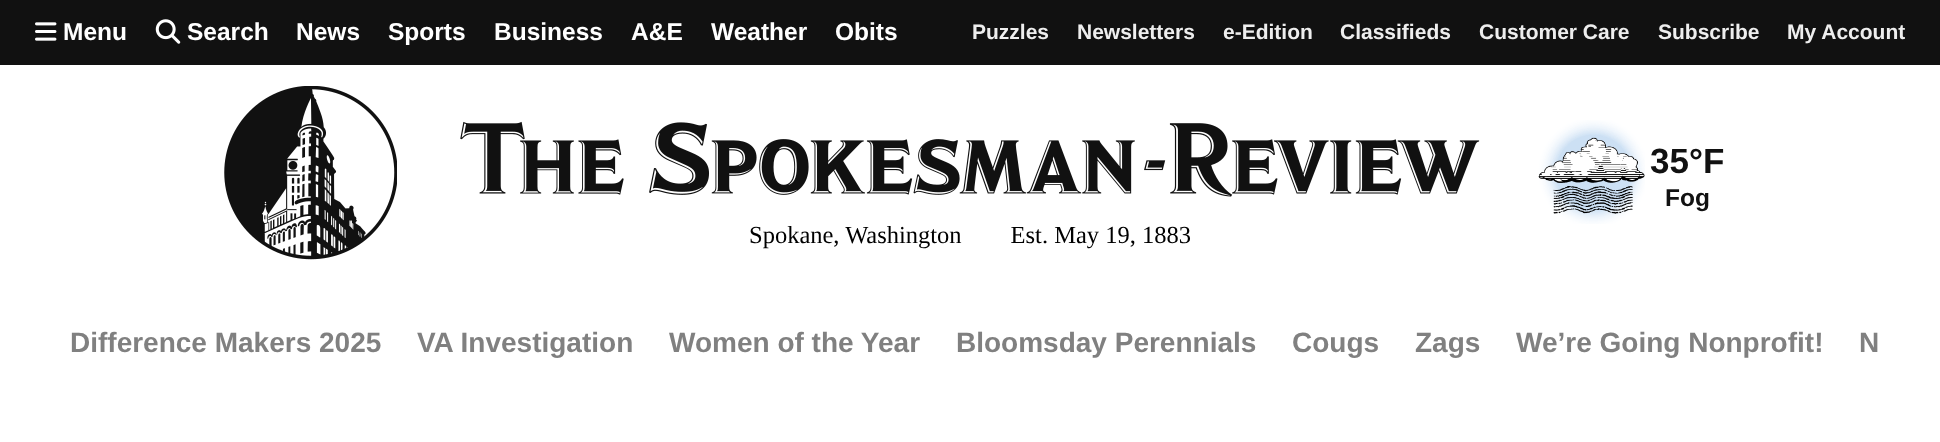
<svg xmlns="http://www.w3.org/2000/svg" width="1940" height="442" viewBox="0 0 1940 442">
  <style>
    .t1 { font: bold 24.5px Liberation Sans; fill: #fff; }
    .t2 { font: bold 21px Liberation Sans; fill: #eee; }
    .t3 { font: bold 35px Liberation Sans; fill: #111; }
    .t4 { font: bold 24.5px Liberation Sans; fill: #111; }
    .t5 { font: 24.5px Liberation Serif; fill: #000; }
    .t6 { font: bold 28px Liberation Sans; fill: #808080; }
  </style>
  <rect width="100%" height="100%" fill="#fff"/>
  <rect x="0" y="0" width="1940" height="65" fill="#111"/>
  <image x="35" y="22" width="22" height="19" href="images/1.png"/>
  <text x="63" y="40" class="t1">Menu</text>
  <image x="155" y="19" width="26" height="25" href="images/2.png"/>
  <text x="187" y="40" class="t1">Search</text>
  <text x="296" y="40" class="t1">News</text>
  <text x="388" y="40" class="t1">Sports</text>
  <text x="494" y="40" class="t1">Business</text>
  <text x="631" y="40" class="t1">A&amp;E</text>
  <text x="711" y="40" class="t1">Weather</text>
  <text x="835" y="40" class="t1">Obits</text>
  <text x="972" y="39" class="t2">Puzzles</text>
  <text x="1077" y="39" class="t2">Newsletters</text>
  <text x="1223" y="39" class="t2">e-Edition</text>
  <text x="1340" y="39" class="t2">Classifieds</text>
  <text x="1479" y="39" class="t2">Customer Care</text>
  <text x="1658" y="39" class="t2">Subscribe</text>
  <text x="1787" y="39" class="t2">My Account</text>
  <image x="224" y="86" width="173" height="174" href="images/3.png"/>
  <image x="1538" y="120" width="107" height="104" href="images/4.png"/>
  <text x="1650" y="173" class="t3">35°F</text>
  <text x="1665" y="206" class="t4">Fog</text>
  <image x="460" y="121" width="1020" height="76" href="images/5.png"/>
  <text x="749" y="243" class="t5">Spokane, Washington  Est. May 19, 1883</text>
  <text x="70" y="352" class="t6">Difference Makers 2025</text>
  <text x="417" y="352" class="t6">VA Investigation</text>
  <text x="669" y="352" class="t6">Women of the Year</text>
  <text x="956" y="352" class="t6">Bloomsday Perennials</text>
  <text x="1292" y="352" class="t6">Cougs</text>
  <text x="1415" y="352" class="t6">Zags</text>
  <text x="1516" y="352" class="t6">We’re Going Nonprofit!</text>
  <text x="1859" y="352" class="t6">N</text>
</svg>
